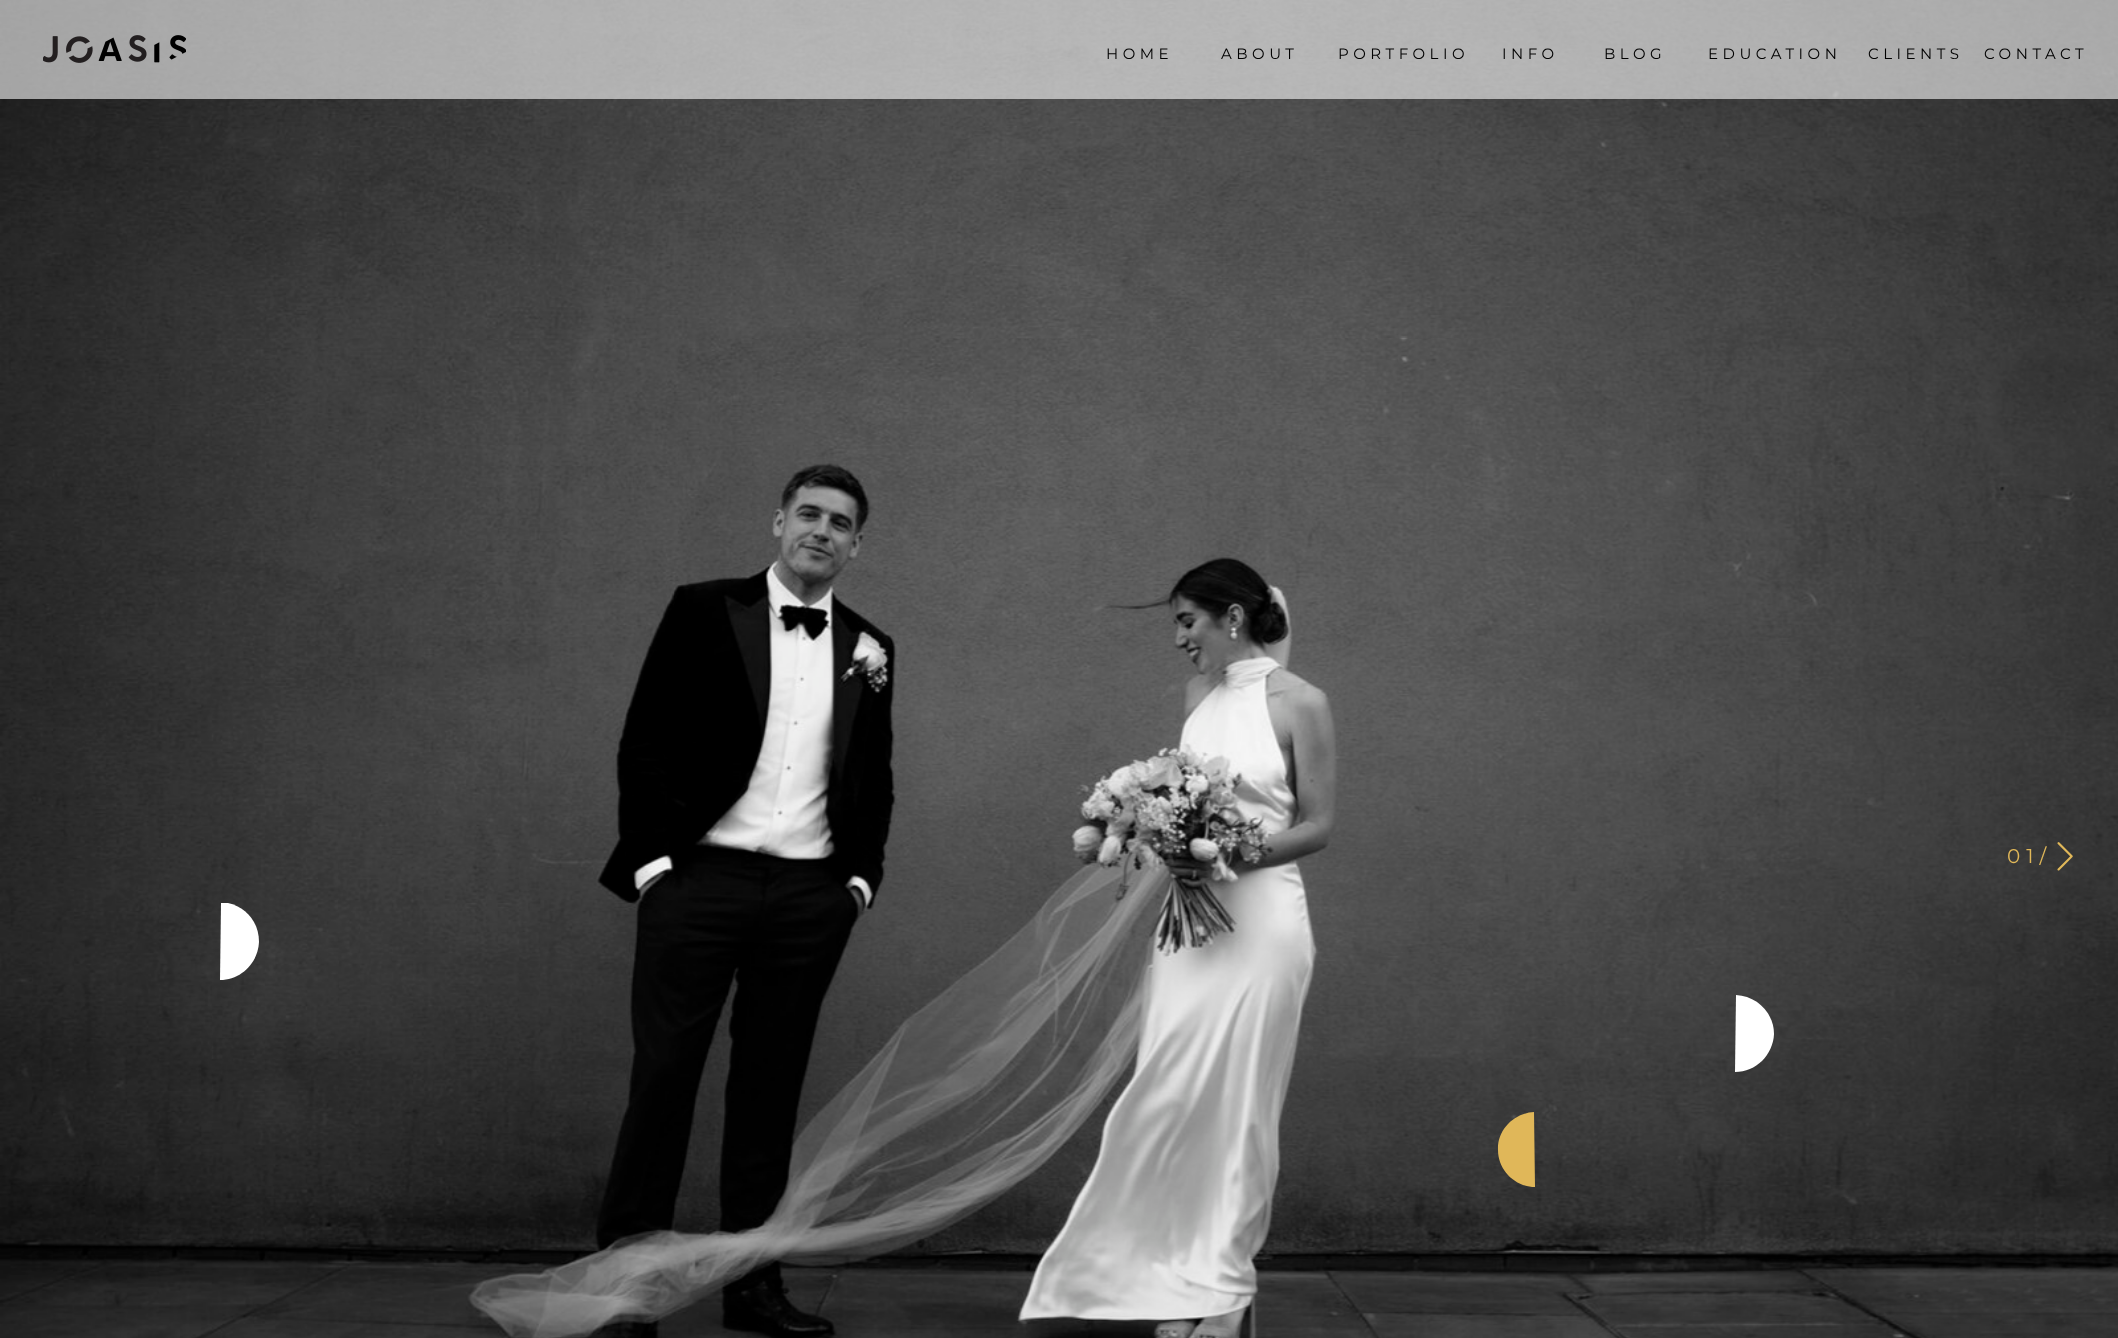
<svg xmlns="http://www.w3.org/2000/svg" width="2118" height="1338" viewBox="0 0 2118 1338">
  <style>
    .t1 { font: 100 15px Montserrat; letter-spacing: 4.5px; fill: #000; }
    .t2 { font: 100 20px Montserrat; letter-spacing: 6px; fill: #e1b859; }
  </style>
  <rect width="100%" height="100%" fill="#fff"/>
  <image x="0" y="0" width="2118" height="1338" href="images/3.png"/>
  <rect x="0" y="0" width="2118" height="99" fill="#ffffff99"/>
  <image x="43" y="35" width="143" height="28" href="images/1.png"/>
  <text x="1106" y="59" class="t1">HOME</text>
  <text x="1221" y="59" class="t1">ABOUT</text>
  <text x="1338" y="59" class="t1">PORTFOLIO</text>
  <text x="1502" y="59" class="t1">INFO</text>
  <text x="1604" y="59" class="t1">BLOG</text>
  <text x="1708" y="59" class="t1">EDUCATION</text>
  <text x="1868" y="59" class="t1">CLIENTS</text>
  <text x="1984" y="59" class="t1">CONTACT</text>
  <image x="2057" y="842" width="16" height="29" href="images/2.png"/>
  <path d="M259 942C259 922 246 907 228 903H221L220 980C241 980 258 963 259 942Z" fill="#fff"/>
  <path d="M1774 1034C1774 1013 1757 996 1736 995L1735 1072C1756 1072 1773 1055 1774 1034Z" fill="#fff"/>
  <path d="M1498 1150C1498 1170 1515 1187 1535 1187L1534 1112C1514 1113 1497 1130 1498 1150Z" fill="#e0b759"/>
  <text x="2007" y="863" class="t2">01/</text>
</svg>
